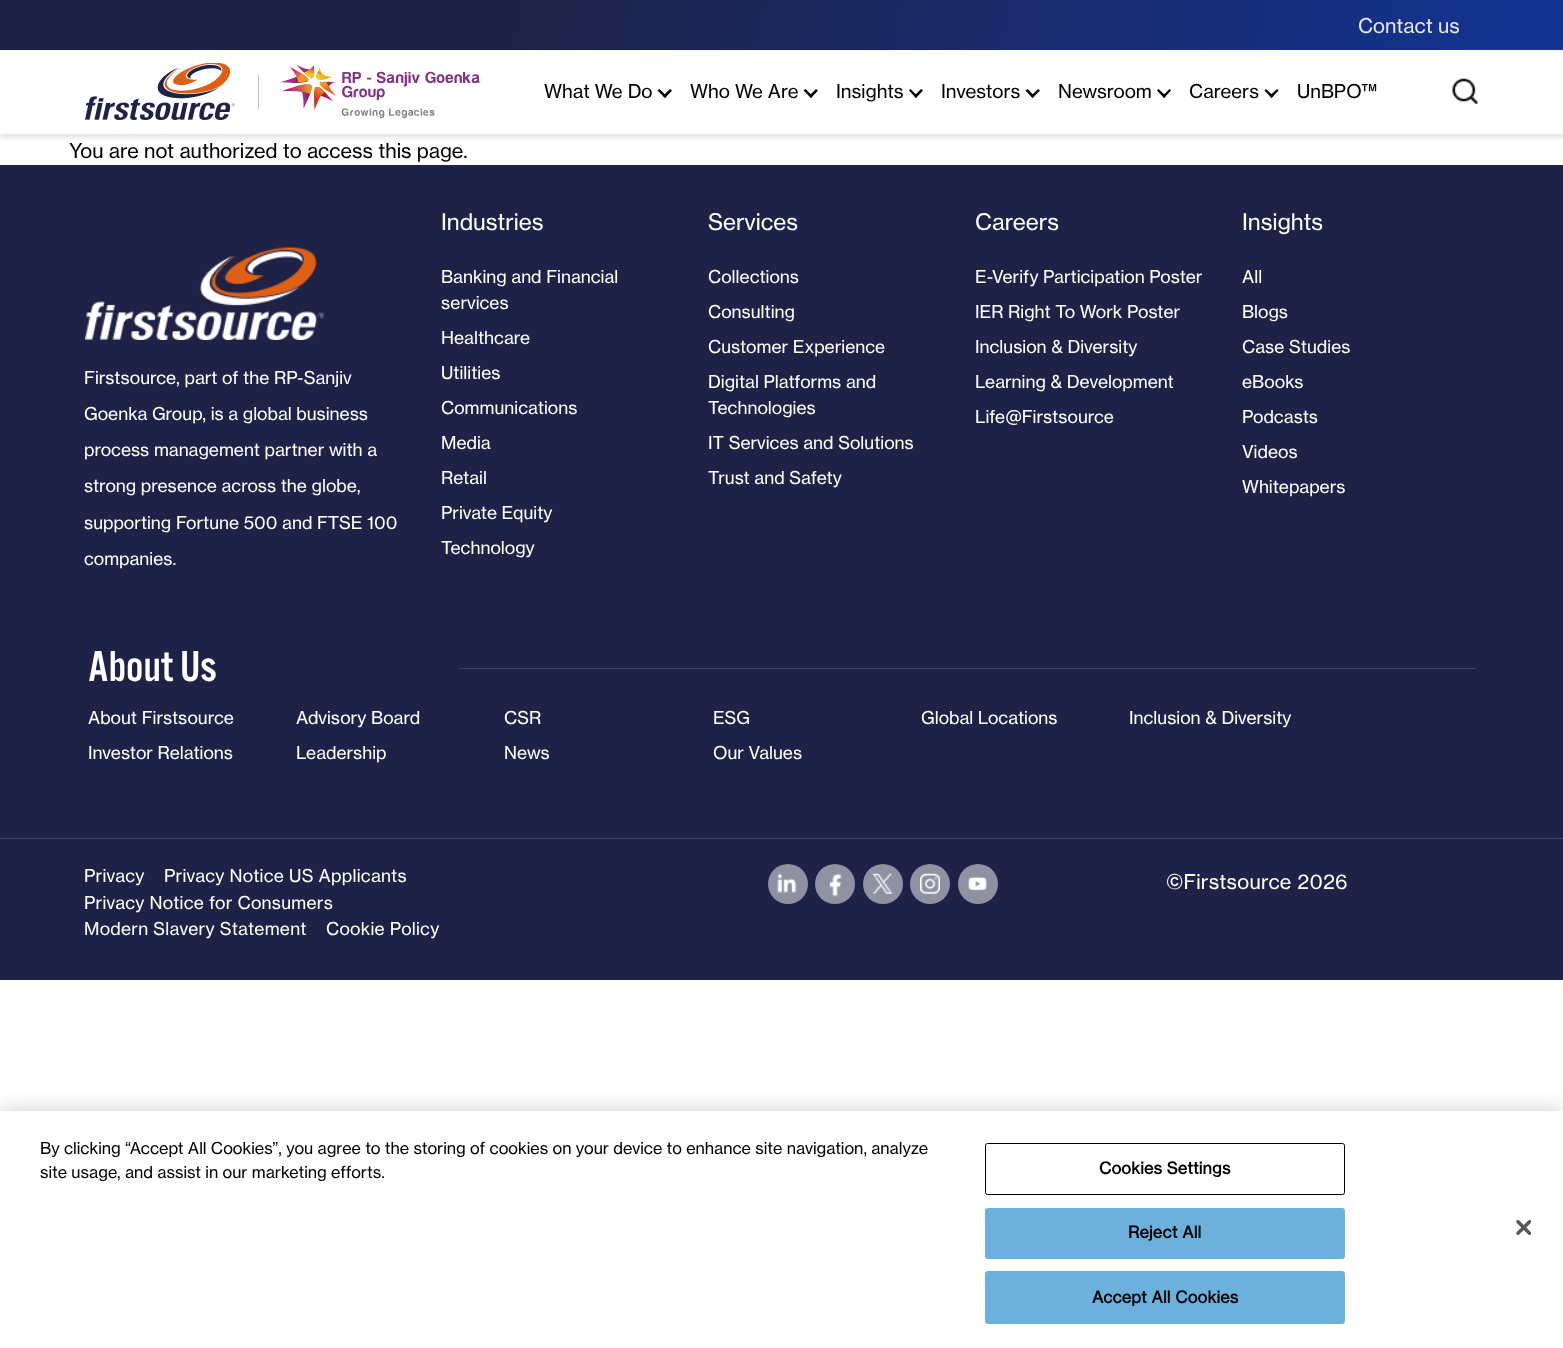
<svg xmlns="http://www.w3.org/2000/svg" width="1563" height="1348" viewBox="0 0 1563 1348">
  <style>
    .t1 { font: 20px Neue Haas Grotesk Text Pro; fill: #e7e7e7; }
    .t2 { font: 18.75px Neue Haas Grotesk Text Pro; fill: #000; }
    .t3 { font: 20px Neue Haas Grotesk Text Pro; fill: #000; }
    .t4 { font: 17.5px Neue Haas Grotesk Text Pro; fill: #fff; }
    .t5 { font: 22.5px Neue Haas Grotesk Text Pro; fill: #fff; }
    .t6 { font: 45px 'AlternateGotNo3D'; fill: #fff; }
    .t7 { font: 17.5px Neue Haas Grotesk Text Pro; letter-spacing: 0.25px; fill: #fff; }
    .t8 { font: 20px Neue Haas Grotesk Text Pro; letter-spacing: 0.25px; fill: #fff; }
    .t9 { font: 16.25px Neue Haas Grotesk Text Pro; fill: #000; }
    .t10 { font: bold 16.25px Neue Haas Grotesk Text Pro; letter-spacing: 0.2px; fill: #000; }
  </style>
  <defs>
    <linearGradient id="g1" gradientUnits="userSpaceOnUse" x1="34" y1="-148" x2="1530" y2="198"><stop offset="0.33" stop-color="#1e2247"/><stop offset="0.95" stop-color="#13338e"/></linearGradient>
  </defs>
  <rect width="100%" height="100%" fill="#fff"/>
  <rect x="0" y="0" width="1563" height="50" fill="url(#g1)"/>
  <text x="1358" y="33" class="t1">Contact us</text>
  <rect x="0" y="54" width="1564" height="84" fill="#0000001a" filter="blur(2px)"/>
  <rect x="0" y="51" width="1563" height="83" fill="#fff"/>
  <image x="85" y="63" width="150" height="57" href="images/1.png"/>
  <rect x="258" y="75" width="1" height="34" fill="#c2c2c2"/>
  <image x="280" y="64" width="200" height="55" href="images/2.png"/>
  <text x="544" y="98" class="t2">What We Do</text>
  <path d="M670 89L672 90.5L665 98L663 96Z" fill="#000"/>
  <path d="M659.5 89L666.5 96L665 98L657.5 90.5Z" fill="#000"/>
  <text x="690" y="98" class="t2">Who We Are</text>
  <path d="M816 89L818 90.5L811 98L809 96Z" fill="#000"/>
  <path d="M805.5 89L812.5 96L811 98L803.5 90.5Z" fill="#000"/>
  <text x="836" y="98" class="t2">Insights</text>
  <path d="M921 89L923 90.5L916 98L914 96Z" fill="#000"/>
  <path d="M910.5 89L917.5 96L916 98L909 90.5Z" fill="#000"/>
  <text x="941" y="98" class="t2">Investors</text>
  <path d="M1038 89L1040 90.5L1032.5 98L1031 96Z" fill="#000"/>
  <path d="M1027.5 89L1034.5 96L1032.5 98L1025.5 90.5Z" fill="#000"/>
  <text x="1058" y="98" class="t2">Newsroom</text>
  <path d="M1169.5 89L1171 90.5L1164 98L1162.5 96Z" fill="#000"/>
  <path d="M1158.5 89L1166 96L1164 98L1157 90.5Z" fill="#000"/>
  <text x="1189" y="98" class="t2">Careers</text>
  <path d="M1277 89L1278.5 90.5L1271.5 98L1269.5 96Z" fill="#000"/>
  <path d="M1266 89L1273.5 96L1271.5 98L1264.5 90.5Z" fill="#000"/>
  <text x="1297" y="98" class="t2">UnBPO™</text>
  <image x="1452" y="78" width="26" height="26" href="images/3.png"/>
  <text x="69" y="158" class="t3">You are not authorized to access this page.</text>
  <rect x="0" y="165" width="1563" height="815" fill="#1e2247"/>
  <image x="85" y="247" width="239" height="93" href="images/4.png"/>
  <text x="84" y="384" class="t4">Firstsource, part of the RP-Sanjiv</text>
  <text x="84" y="420" class="t4">Goenka Group, is a global business</text>
  <text x="84" y="456" class="t4">process management partner with a</text>
  <text x="84" y="492" class="t4">strong presence across the globe,</text>
  <text x="84" y="529" class="t4">supporting Fortune 500 and FTSE 100</text>
  <text x="84" y="565" class="t4">companies.</text>
  <text x="441" y="230" class="t5">Industries</text>
  <text x="441" y="283" class="t4">Banking and Financial</text>
  <text x="441" y="309" class="t4">services</text>
  <text x="441" y="344" class="t4">Healthcare</text>
  <text x="441" y="379" class="t4">Utilities</text>
  <text x="441" y="414" class="t4">Communications</text>
  <text x="441" y="449" class="t4">Media</text>
  <text x="441" y="484" class="t4">Retail</text>
  <text x="441" y="519" class="t4">Private Equity</text>
  <text x="441" y="554" class="t4">Technology</text>
  <text x="708" y="230" class="t5">Services</text>
  <text x="708" y="283" class="t4">Collections</text>
  <text x="708" y="318" class="t4">Consulting</text>
  <text x="708" y="353" class="t4">Customer Experience</text>
  <text x="708" y="388" class="t4">Digital Platforms and</text>
  <text x="708" y="414" class="t4">Technologies</text>
  <text x="708" y="449" class="t4">IT Services and Solutions</text>
  <text x="708" y="484" class="t4">Trust and Safety</text>
  <text x="975" y="230" class="t5">Careers</text>
  <text x="975" y="283" class="t4">E-Verify Participation Poster</text>
  <text x="975" y="318" class="t4">IER Right To Work Poster</text>
  <text x="975" y="353" class="t4">Inclusion &amp; Diversity</text>
  <text x="975" y="388" class="t4">Learning &amp; Development</text>
  <text x="975" y="423" class="t4">Life@Firstsource</text>
  <text x="1242" y="230" class="t5">Insights</text>
  <text x="1242" y="283" class="t4">All</text>
  <text x="1242" y="318" class="t4">Blogs</text>
  <text x="1242" y="353" class="t4">Case Studies</text>
  <text x="1242" y="388" class="t4">eBooks</text>
  <text x="1242" y="423" class="t4">Podcasts</text>
  <text x="1242" y="458" class="t4">Videos</text>
  <text x="1242" y="493" class="t4">Whitepapers</text>
  <text x="88" y="681" class="t6">About Us</text>
  <rect x="459" y="668" width="1017" height="1" fill="#3e4161"/>
  <text x="88" y="724" class="t4">About Firstsource</text>
  <text x="296" y="724" class="t4">Advisory Board</text>
  <text x="504" y="724" class="t4">CSR</text>
  <text x="713" y="724" class="t4">ESG</text>
  <text x="921" y="724" class="t4">Global Locations</text>
  <text x="1129" y="724" class="t4">Inclusion &amp; Diversity</text>
  <text x="88" y="759" class="t4">Investor Relations</text>
  <text x="296" y="759" class="t4">Leadership</text>
  <text x="504" y="759" class="t4">News</text>
  <text x="713" y="759" class="t4">Our Values</text>
  <rect x="0" y="838" width="1563" height="1" fill="#404363"/>
  <text x="84" y="882" class="t7">Privacy</text>
  <text x="164" y="882" class="t7">Privacy Notice US Applicants</text>
  <text x="84" y="909" class="t7">Privacy Notice for Consumers</text>
  <text x="84" y="935" class="t7">Modern Slavery Statement</text>
  <text x="326" y="935" class="t7">Cookie Policy</text>
  <circle cx="788" cy="884" r="20" fill="#8f91a3"/>
  <image x="777" y="873" width="20" height="20" href="images/5.png"/>
  <circle cx="835" cy="884" r="20" fill="#8f91a3"/>
  <image x="829" y="873" width="13" height="24" href="images/6.png"/>
  <circle cx="883" cy="884" r="20" fill="#8f91a3"/>
  <image x="872" y="873" width="21" height="21" href="images/7.png"/>
  <circle cx="930" cy="884" r="20" fill="#8f91a3"/>
  <image x="920" y="873" width="20" height="21" href="images/8.png"/>
  <circle cx="978" cy="884" r="20" fill="#8f91a3"/>
  <image x="968" y="877" width="19" height="14" href="images/9.png"/>
  <text x="1166" y="889" class="t8">©Firstsource 2026</text>
  <rect x="0" y="1111" width="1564" height="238" fill="#00000033" filter="blur(11px)"/>
  <rect x="0" y="1111" width="1563" height="237" fill="#fff"/>
  <text x="40" y="1154" class="t9">By clicking “Accept All Cookies”, you agree to the storing of cookies on your device to enhance site navigation, analyze</text>
  <text x="40" y="1178" class="t9">site usage, and assist in our marketing efforts.</text>
  <rect x="985.5" y="1143.5" width="359" height="51" rx="2" fill="none" stroke="#000"/>
  <text x="1099" y="1174" class="t10">Cookies Settings</text>
  <rect x="985.5" y="1208.5" width="359" height="50" rx="2" fill="#6cb1db" stroke="#6cb1db"/>
  <text x="1128" y="1238" class="t10">Reject All</text>
  <rect x="985.5" y="1271.5" width="359" height="52" rx="2" fill="#6cb1db" stroke="#6cb1db"/>
  <text x="1092" y="1303" class="t10">Accept All Cookies</text>
  <image x="1516" y="1220" width="15" height="15" href="images/10.png"/>
</svg>
